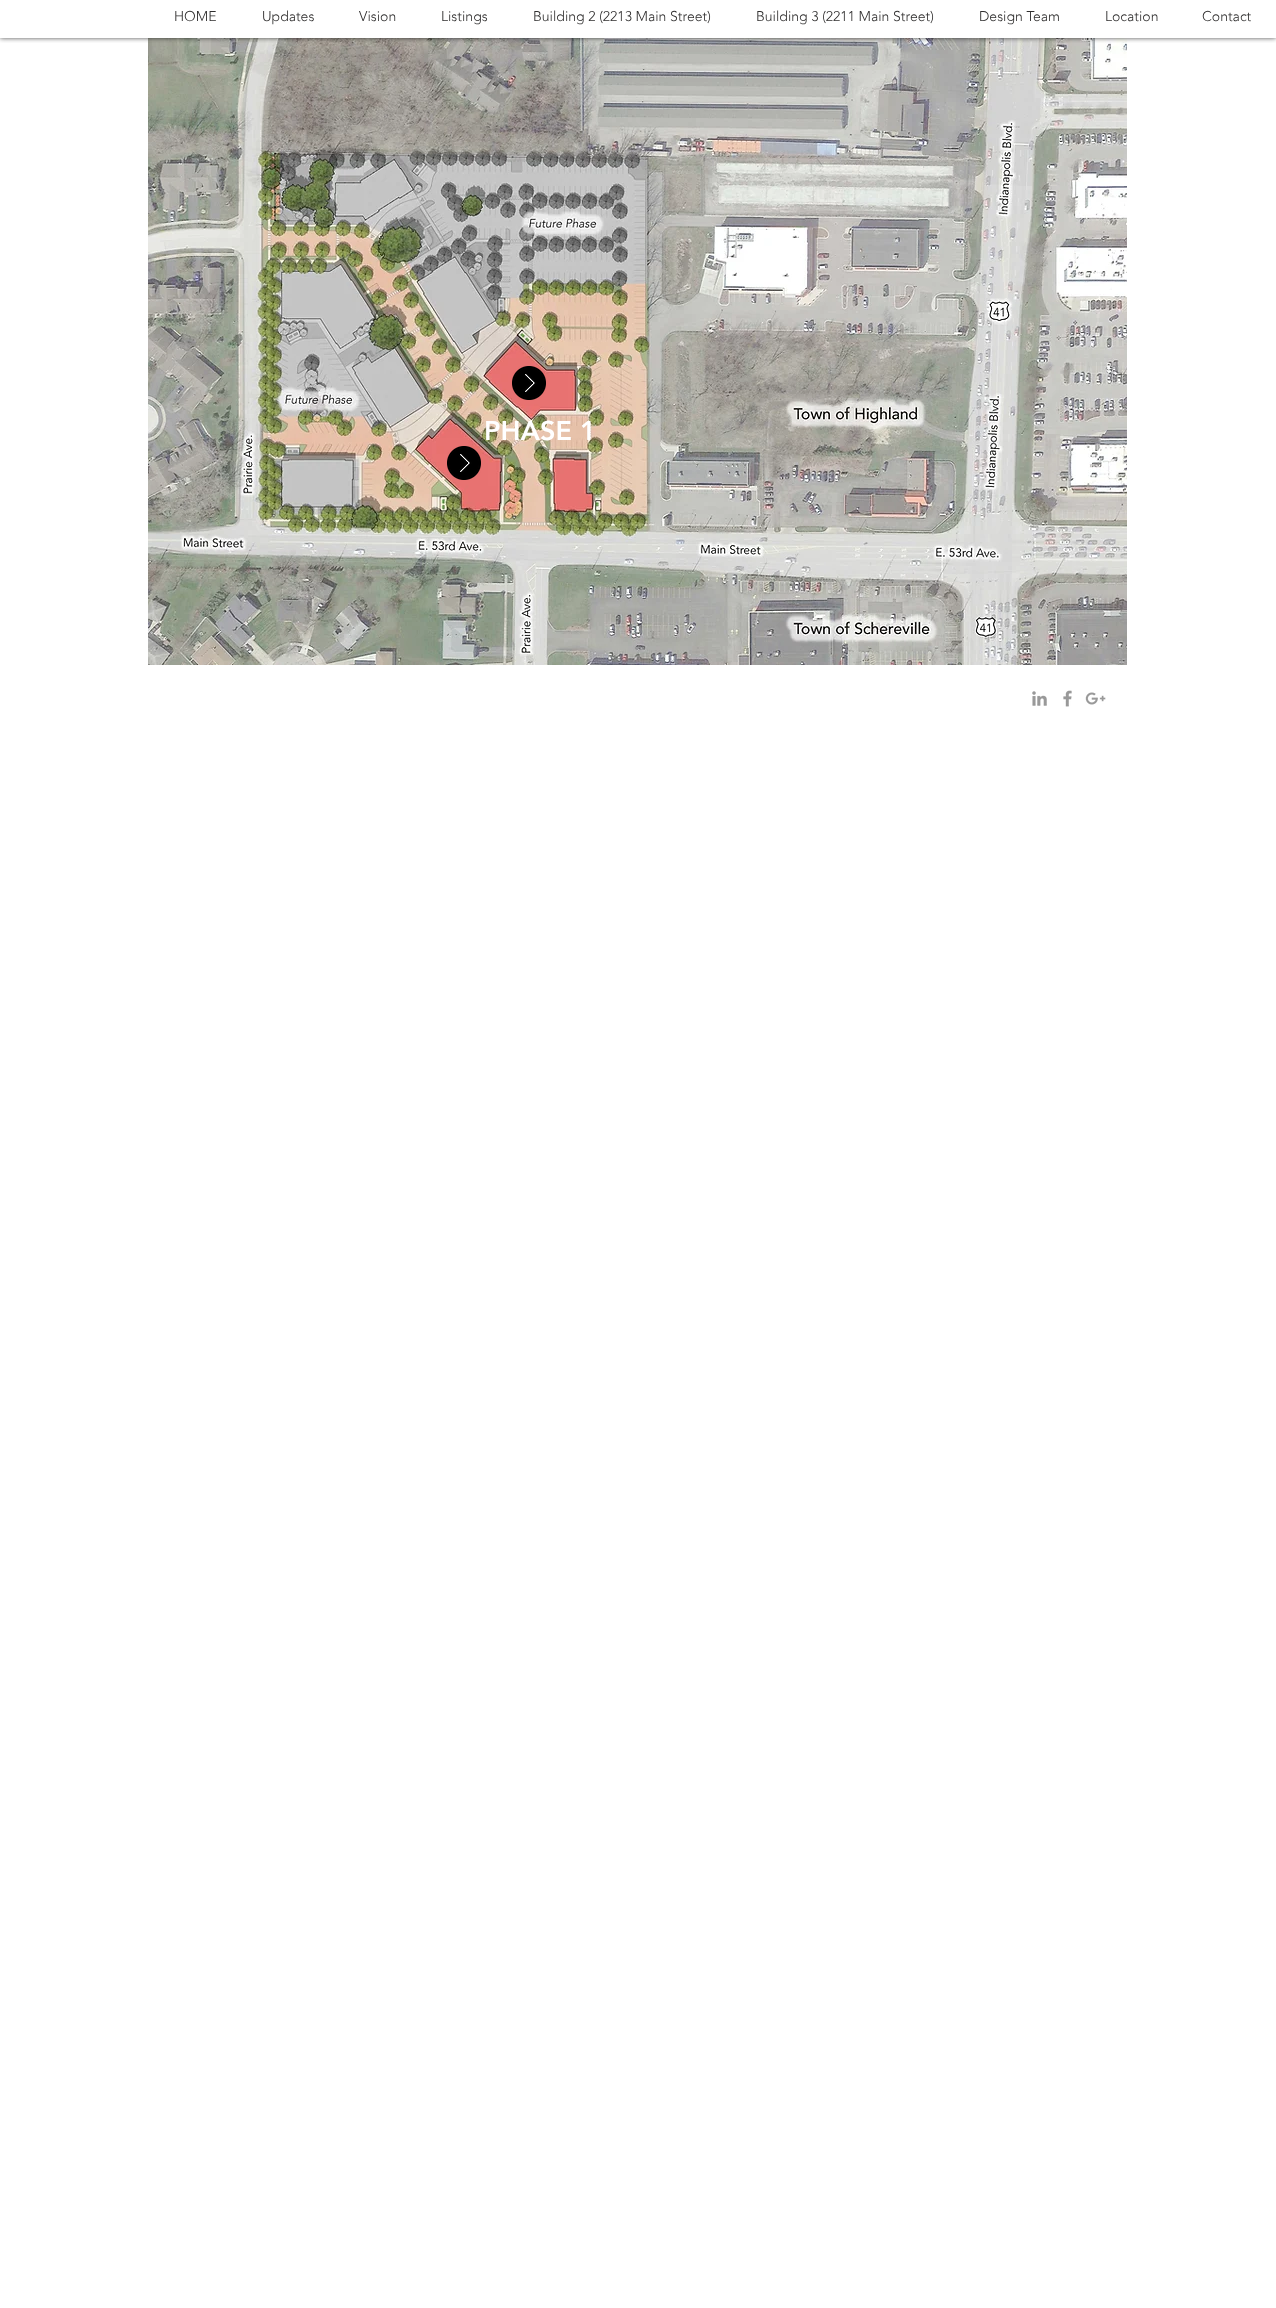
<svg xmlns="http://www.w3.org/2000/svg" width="1276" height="2308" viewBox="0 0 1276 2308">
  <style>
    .t1 { font: 300 14px 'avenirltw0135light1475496'; fill: #2f2e2e; }
    .t2 { font: 900 27px 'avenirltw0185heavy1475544'; fill: #fff; }
  </style>
  <defs>
    <clipPath id="clip1"><rect x="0" y="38" width="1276" height="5"/></clipPath>
  </defs>
  <rect width="100%" height="100%" fill="#fff"/>
  <image x="148" y="38" width="979" height="627" href="images/1.png"/>
  <g clip-path="url(#clip1)">
    <rect x="0" y="0" width="1276" height="38" fill="#000000b3" filter="blur(2.5px)"/>
  </g>
  <text x="174" y="21" class="t1">HOME</text>
  <text x="262" y="21" class="t1">Updates</text>
  <text x="359" y="21" class="t1">Vision</text>
  <text x="441" y="21" class="t1">Listings</text>
  <text x="533" y="21" class="t1">Building 2 (2213 Main Street)</text>
  <text x="756" y="21" class="t1">Building 3 (2211 Main Street)</text>
  <text x="979" y="21" class="t1">Design Team</text>
  <text x="1105" y="21" class="t1">Location</text>
  <text x="1202" y="21" class="t1">Contact</text>
  <image x="512" y="366" width="34" height="34" href="images/2.png"/>
  <text x="484" y="440" class="t2">PHASE 1</text>
  <image x="447" y="446" width="34" height="34" href="images/3.png"/>
  <image x="1032" y="691" width="15" height="15" href="images/4.png"/>
  <image x="1063" y="690" width="9" height="17" href="images/5.png"/>
  <image x="1085" y="692" width="21" height="13" href="images/6.png"/>
</svg>
